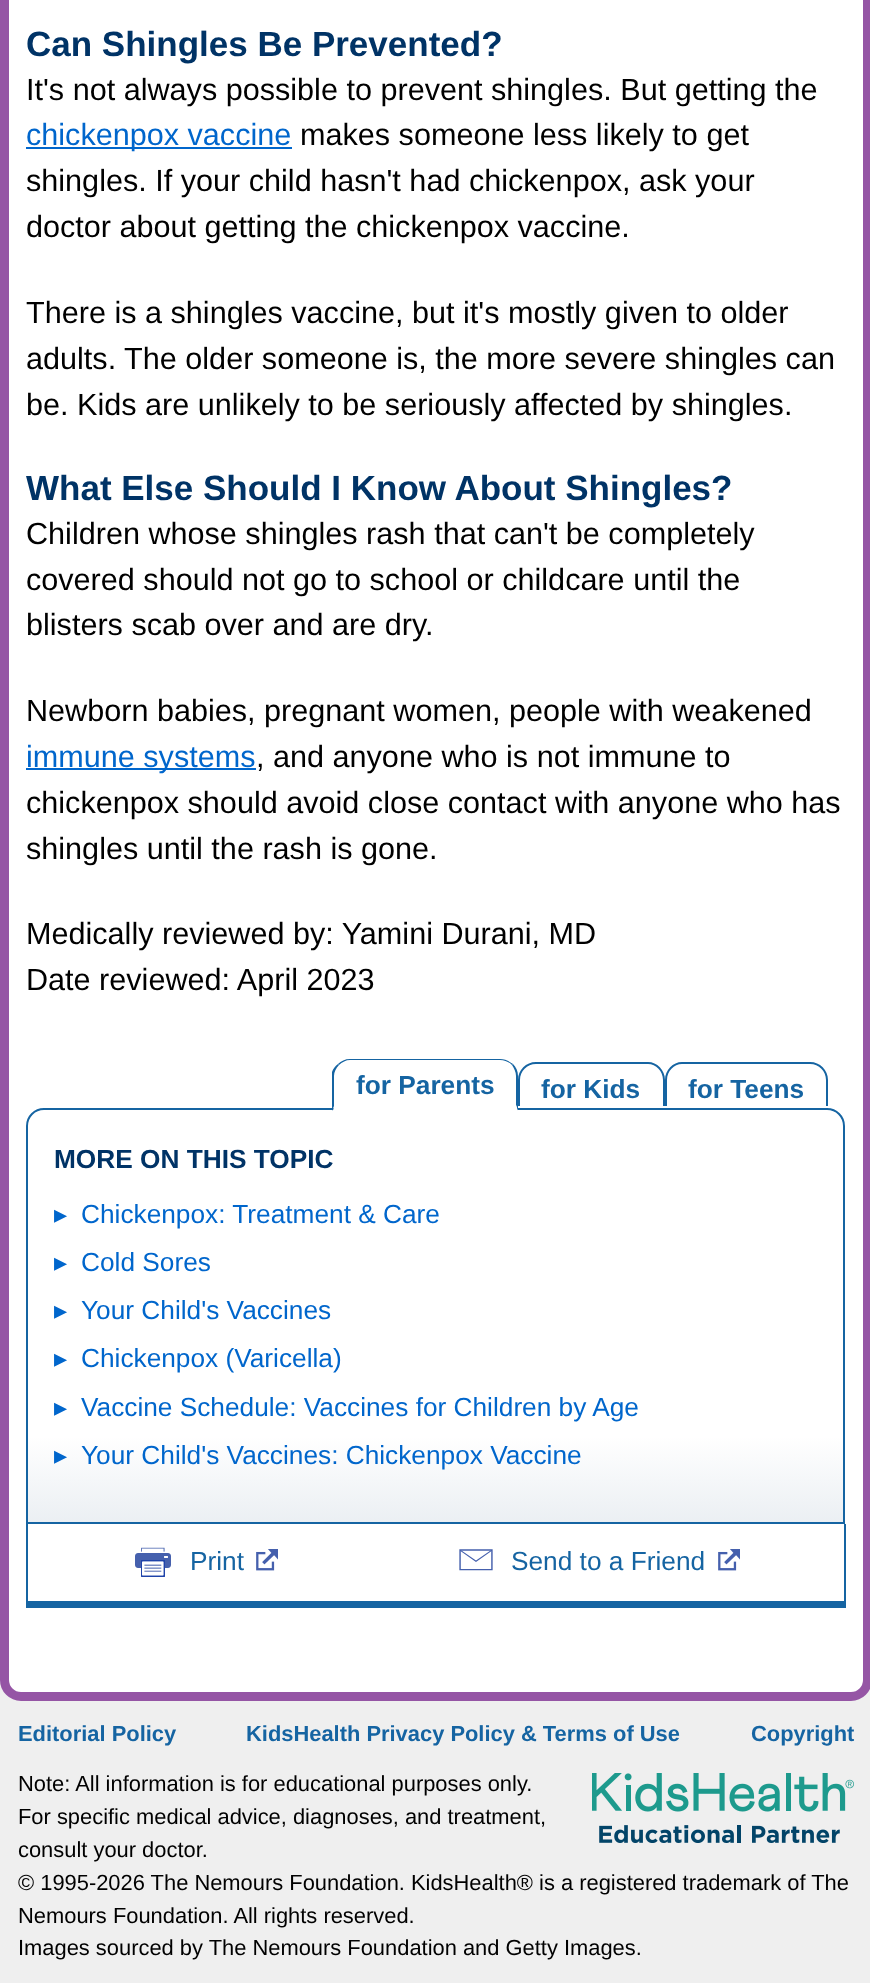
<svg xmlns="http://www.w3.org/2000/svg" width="870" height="1983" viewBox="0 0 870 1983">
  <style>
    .t1 { font: bold 35px Liberation Sans; fill: #036; }
    .t2 { font: 30.6px Liberation Sans; fill: #000; }
    .t3 { font: 30.6px Liberation Sans; fill: #06c; }
    .t4 { font: bold 26.25px Liberation Sans; fill: #1564a2; }
    .t5 { font: bold 26.25px Liberation Sans; fill: #036; }
    .t6 { font: 26.25px DejaVu Sans; fill: #06c; }
    .t7 { font: 26.25px Liberation Sans; fill: #06c; }
    .t8 { font: 26.25px Liberation Sans; fill: #1564a2; }
    .t9 { font: bold 21.9px Liberation Sans; fill: #1564a2; }
    .t10 { font: 21.9px Liberation Sans; fill: #000; }
  </style>
  <defs>
    <clipPath id="clip1"><path d="M44 1108H827C837 1108 845 1116 845 1126V1524H26V1126C26 1116 34 1108 44 1108Z"/></clipPath>
    <linearGradient id="g1" gradientUnits="userSpaceOnUse" x1="436" y1="1523" x2="436" y2="1110"><stop offset="0" stop-color="#ebeff3"/><stop offset="0.21" stop-color="#fff"/></linearGradient>
  </defs>
  <rect width="100%" height="100%" fill="#efefef"/>
  <rect x="4.5" y="-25.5" width="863" height="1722" rx="16.5" fill="#fff" stroke="#9555a5" stroke-width="9"/>
  <text x="26" y="56" class="t1">Can Shingles Be Prevented?</text>
  <text x="26" y="100" class="t2">It's not always possible to prevent shingles. But getting the</text>
  <rect x="26" y="147" width="266" height="2" fill="#06c"/>
  <text x="26" y="145" class="t3">chickenpox vaccine</text>
  <text x="300" y="145" class="t2">makes someone less likely to get</text>
  <text x="26" y="191" class="t2">shingles. If your child hasn't had chickenpox, ask your</text>
  <text x="26" y="237" class="t2">doctor about getting the chickenpox vaccine.</text>
  <text x="26" y="323" class="t2">There is a shingles vaccine, but it's mostly given to older</text>
  <text x="26" y="369" class="t2">adults. The older someone is, the more severe shingles can</text>
  <text x="26" y="415" class="t2">be. Kids are unlikely to be seriously affected by shingles.</text>
  <text x="26" y="500" class="t1">What Else Should I Know About Shingles?</text>
  <text x="26" y="544" class="t2">Children whose shingles rash that can't be completely</text>
  <text x="26" y="590" class="t2">covered should not go to school or childcare until the</text>
  <text x="26" y="635" class="t2">blisters scab over and are dry.</text>
  <text x="26" y="721" class="t2">Newborn babies, pregnant women, people with weakened</text>
  <rect x="26" y="768" width="230" height="2" fill="#06c"/>
  <text x="26" y="767" class="t3">immune systems</text>
  <text x="256" y="767" class="t2">, and anyone who is not immune to</text>
  <text x="26" y="813" class="t2">chickenpox should avoid close contact with anyone who has</text>
  <text x="26" y="859" class="t2">shingles until the rash is gone.</text>
  <text x="26" y="944" class="t2">Medically reviewed by: Yamini Durani, MD</text>
  <text x="26" y="990" class="t2">Date reviewed: April 2023</text>
  <path d="M350 1059C345 1059 341 1061 338 1064L339 1065C342 1062 346 1060 350 1060H500C505 1060 509 1062 512 1065L513 1064C509 1061 505 1059 500 1059Z" fill="#1564a2"/>
  <g clip-path="url(#clip1)">
    <rect x="26" y="1110" width="819" height="412" fill="url(#g1)"/>
  </g>
  <path d="M44 1109H827C836.5 1109 844 1116.5 844 1126V1523H27V1126C27 1116.5 34.5 1109 44 1109Z" fill="none" stroke="#1564a2" stroke-width="2"/>
  <path d="M513 1064C516 1067 518 1071 518 1076V1111L516 1105V1076C516 1072 514 1068 512 1065Z" fill="#1564a2"/>
  <path d="M518 1111H333L334 1106H516V1105Z" fill="#fff"/>
  <path d="M332 1072C333 1069 335 1066 338 1064L339 1065C336 1068 334 1072 334 1076V1106L332 1111Z" fill="#1564a2"/>
  <text x="356" y="1094" class="t4">for Parents</text>
  <path d="M536 1062H648C657 1062 665 1070 665 1080V1106H518V1080C518 1070 526 1062 536 1062ZM536 1064H648C656 1064 663 1071 663 1080V1106H520V1080C520 1071 527 1064 536 1064Z" fill="#1564a2" fill-rule="evenodd"/>
  <text x="541" y="1098" class="t4">for Kids</text>
  <path d="M682 1062H810C820 1062 828 1070 828 1080V1106H665V1080C665 1070 673 1062 682 1062ZM682 1064H810C819 1064 826 1071 826 1080V1106H667V1080C667 1071 674 1064 682 1064Z" fill="#1564a2" fill-rule="evenodd"/>
  <text x="688" y="1098" class="t4">for Teens</text>
  <text x="54" y="1168" class="t5">MORE ON THIS TOPIC</text>
  <text x="54" y="1223" class="t6">▸</text>
  <text x="81" y="1223" class="t7">Chickenpox: Treatment &amp; Care</text>
  <text x="54" y="1271" class="t6">▸</text>
  <text x="81" y="1271" class="t7">Cold Sores</text>
  <text x="54" y="1319" class="t6">▸</text>
  <text x="81" y="1319" class="t7">Your Child's Vaccines</text>
  <text x="54" y="1367" class="t6">▸</text>
  <text x="81" y="1367" class="t7">Chickenpox (Varicella)</text>
  <text x="54" y="1416" class="t6">▸</text>
  <text x="81" y="1416" class="t7">Vaccine Schedule: Vaccines for Children by Age</text>
  <text x="54" y="1464" class="t6">▸</text>
  <text x="81" y="1464" class="t7">Your Child's Vaccines: Chickenpox Vaccine</text>
  <rect x="844" y="1524" width="2" height="84" fill="#1564a2"/>
  <rect x="26" y="1601" width="819" height="7" fill="#1564a2"/>
  <rect x="26" y="1524" width="2" height="84" fill="#1564a2"/>
  <image x="135" y="1547" width="36" height="30" href="images/1.png"/>
  <text x="190" y="1570" class="t8">Print</text>
  <image x="256" y="1549" width="22" height="22" href="images/2.png"/>
  <image x="459" y="1549" width="34" height="22" href="images/3.png"/>
  <text x="511" y="1570" class="t8">Send to a Friend</text>
  <image x="718" y="1549" width="22" height="22" href="images/2.png"/>
  <text x="18" y="1741" class="t9">Editorial Policy</text>
  <text x="246" y="1741" class="t9">KidsHealth Privacy Policy &amp; Terms of Use</text>
  <text x="751" y="1741" class="t9">Copyright</text>
  <text x="18" y="1791" class="t10">Note: All information is for educational purposes only.</text>
  <image x="592" y="1773" width="262" height="70" href="images/4.png"/>
  <text x="18" y="1824" class="t10">For specific medical advice, diagnoses, and treatment,</text>
  <text x="18" y="1857" class="t10">consult your doctor.</text>
  <text x="18" y="1890" class="t10">© 1995-2026 The Nemours Foundation. KidsHealth® is a registered trademark of The</text>
  <text x="18" y="1923" class="t10">Nemours Foundation. All rights reserved.</text>
  <text x="18" y="1955" class="t10">Images sourced by The Nemours Foundation and Getty Images.</text>
</svg>
